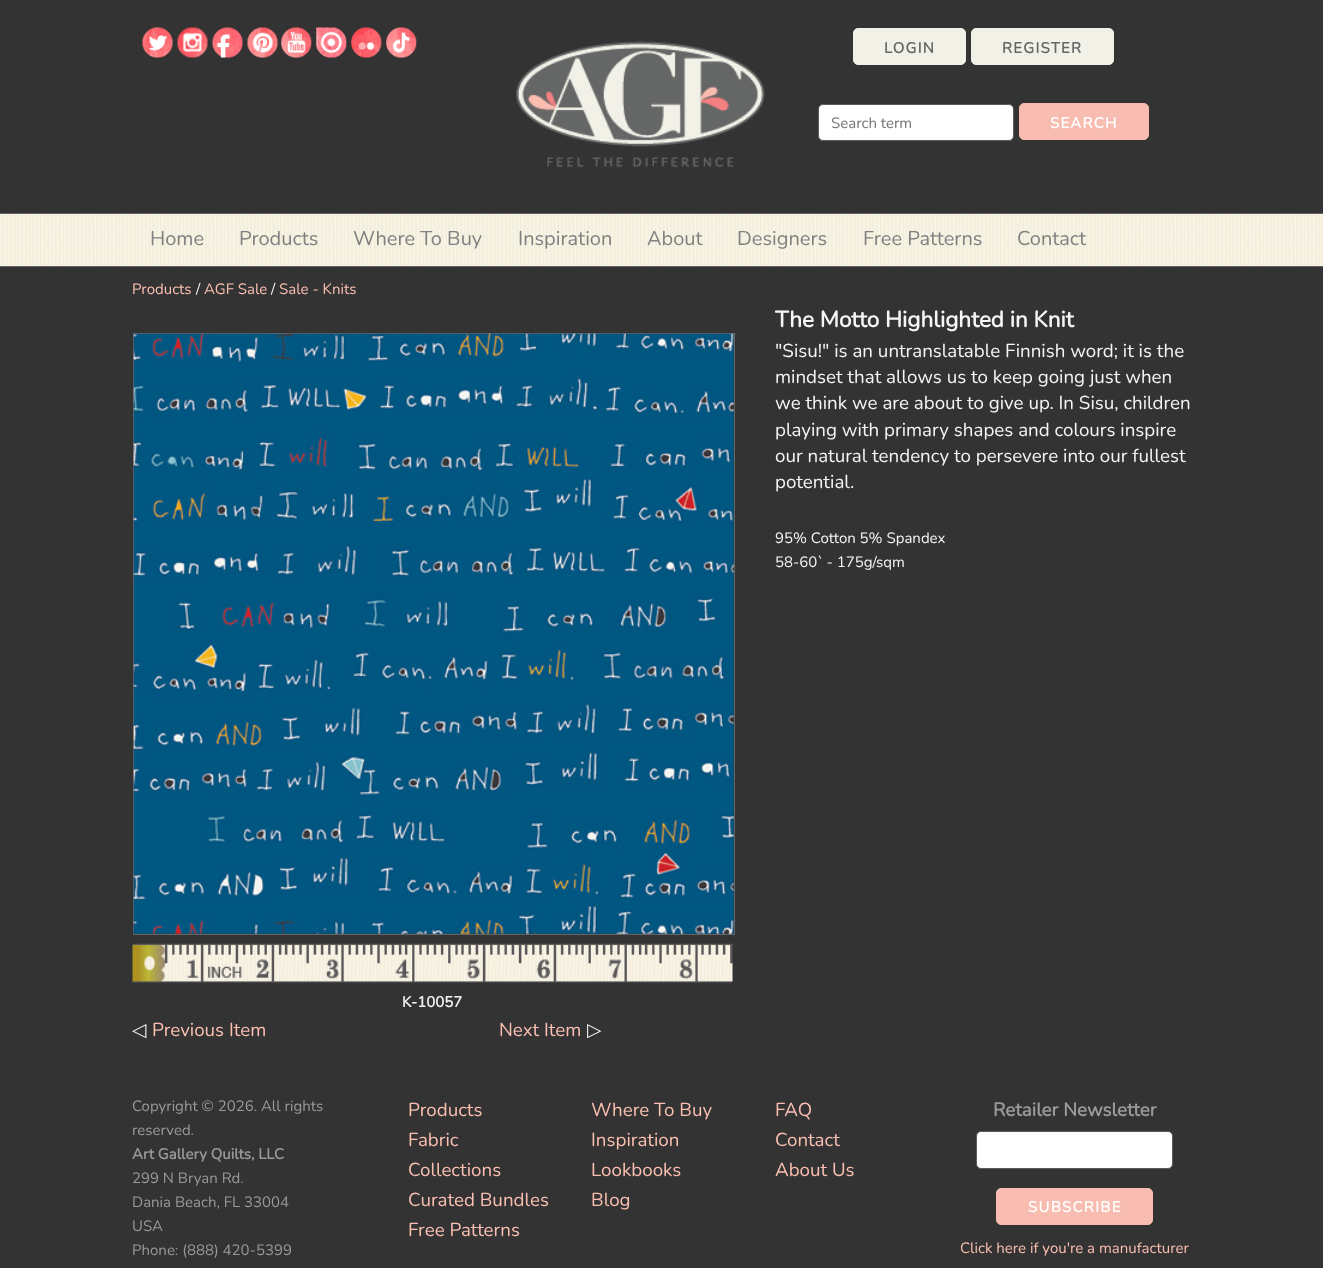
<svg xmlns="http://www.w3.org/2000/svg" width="1323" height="1268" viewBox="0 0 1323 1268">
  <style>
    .t1 { font: bold 15px Nunito; letter-spacing: 1.25px; fill: #666; }
    .t2 { font: 200 15px Nunito; fill: #757575; }
    .t3 { font: bold 15px Nunito; letter-spacing: 1.25px; fill: #fff; }
    .t4 { font: 200 20px Nunito; fill: #808080; }
    .t5 { font: 200 15px Nunito; fill: #fbbfb1; }
    .t6 { font: 200 15px Nunito; fill: #f5f5f5; }
    .t7 { font: bold 22.5px Nunito; fill: #f5f5f5; }
    .t8 { font: 200 18.75px Nunito; fill: #f5f5f5; }
    .t9 { font: bold 15px Nunito; fill: #f5f5f5; }
    .t10 { font: 18.75px DejaVu Sans; fill: #f5f5f5; }
    .t11 { font: 200 18.75px Nunito; fill: #fbbfb1; }
    .t12 { font: 200 15px Nunito; fill: #999; }
    .t13 { font: bold 15px Nunito; fill: #999; }
    .t14 { font: bold 18.75px Nunito; fill: #999; }
  </style>
  <rect width="100%" height="100%" fill="#333"/>
  <image x="142" y="27" width="31" height="31" href="images/1.png"/>
  <image x="177" y="27" width="31" height="31" href="images/2.png"/>
  <image x="212" y="27" width="31" height="31" href="images/3.png"/>
  <image x="247" y="27" width="31" height="31" href="images/4.png"/>
  <image x="281" y="27" width="31" height="31" href="images/5.png"/>
  <image x="316" y="27" width="31" height="31" href="images/6.png"/>
  <image x="351" y="27" width="31" height="31" href="images/7.png"/>
  <image x="386" y="27" width="31" height="31" href="images/8.png"/>
  <image x="516" y="41" width="249" height="127" href="images/9.png"/>
  <rect x="853.5" y="28.5" width="112" height="36" rx="4.5" fill="#f1f1e8" stroke="#f1f1e8"/>
  <text x="884" y="53" class="t1">LOGIN</text>
  <rect x="971.5" y="28.5" width="142" height="36" rx="4.5" fill="#f1f1e8" stroke="#f1f1e8"/>
  <text x="1002" y="53" class="t1">REGISTER</text>
  <rect x="818.5" y="104.5" width="195" height="36" rx="4.5" fill="#fff" stroke="#595d5d"/>
  <text x="831" y="128" class="t2">Search term</text>
  <rect x="1019.5" y="103.5" width="129" height="36" rx="4.5" fill="#f8bdb0" stroke="#f8bdb0"/>
  <text x="1050" y="128" class="t3">SEARCH</text>
  <image x="0" y="213" width="1323" height="54" href="images/10.png"/>
  <text x="150" y="245" class="t4">Home</text>
  <text x="239" y="245" class="t4">Products</text>
  <text x="353" y="245" class="t4">Where To Buy</text>
  <text x="518" y="245" class="t4">Inspiration</text>
  <text x="647" y="245" class="t4">About</text>
  <text x="737" y="245" class="t4">Designers</text>
  <text x="863" y="245" class="t4">Free Patterns</text>
  <text x="1017" y="245" class="t4">Contact</text>
  <text x="132" y="294" class="t5">Products</text>
  <text x="196" y="294" class="t6">/</text>
  <text x="204" y="294" class="t5">AGF Sale</text>
  <text x="271" y="294" class="t6">/</text>
  <text x="279" y="294" class="t5">Sale - Knits</text>
  <text x="775" y="327" class="t7">The Motto Highlighted in Knit</text>
  <text x="775" y="357" class="t8">"Sisu!" is an untranslatable Finnish word; it is the</text>
  <text x="775" y="383" class="t8">mindset that allows us to keep going just when</text>
  <text x="775" y="409" class="t8">we think we are about to give up. In Sisu, children</text>
  <text x="775" y="436" class="t8">playing with primary shapes and colours inspire</text>
  <text x="775" y="462" class="t8">our natural tendency to persevere into our fullest</text>
  <text x="775" y="488" class="t8">potential.</text>
  <text x="775" y="543" class="t6">95% Cotton 5% Spandex</text>
  <text x="775" y="567" class="t6">58-60` - 175g/sqm</text>
  <rect x="133.5" y="333.5" width="601" height="601" fill="none" stroke="#666"/>
  <image x="133" y="333" width="601" height="601" href="images/11.png"/>
  <image x="132" y="943" width="601" height="40" href="images/12.png"/>
  <text x="402" y="1007" class="t9">K-10057</text>
  <text x="132" y="1036" class="t10">◁</text>
  <text x="152" y="1036" class="t11">Previous Item</text>
  <text x="499" y="1036" class="t11">Next Item</text>
  <text x="587" y="1036" class="t10">▷</text>
  <text x="132" y="1111" class="t12">Copyright © 2026. All rights</text>
  <text x="132" y="1135" class="t12">reserved.</text>
  <text x="132" y="1159" class="t13">Art Gallery Quilts, LLC</text>
  <text x="132" y="1183" class="t12">299 N Bryan Rd.</text>
  <text x="132" y="1207" class="t12">Dania Beach, FL 33004</text>
  <text x="132" y="1231" class="t12">USA</text>
  <text x="132" y="1255" class="t12">Phone: (888) 420-5399</text>
  <text x="408" y="1116" class="t11">Products</text>
  <text x="408" y="1146" class="t11">Fabric</text>
  <text x="408" y="1176" class="t11">Collections</text>
  <text x="408" y="1206" class="t11">Curated Bundles</text>
  <text x="408" y="1236" class="t11">Free Patterns</text>
  <text x="591" y="1116" class="t11">Where To Buy</text>
  <text x="591" y="1146" class="t11">Inspiration</text>
  <text x="591" y="1176" class="t11">Lookbooks</text>
  <text x="591" y="1206" class="t11">Blog</text>
  <text x="775" y="1116" class="t11">FAQ</text>
  <text x="775" y="1146" class="t11">Contact</text>
  <text x="775" y="1176" class="t11">About Us</text>
  <text x="993" y="1116" class="t14">Retailer Newsletter</text>
  <rect x="976.5" y="1131.5" width="196" height="37" rx="4.5" fill="#fff" stroke="#595d5d"/>
  <rect x="996.5" y="1188.5" width="156" height="36" rx="4.5" fill="#f8bdb0" stroke="#f8bdb0"/>
  <text x="1028" y="1212" class="t3">SUBSCRIBE</text>
  <text x="960" y="1253" class="t5">Click here if you're a manufacturer</text>
</svg>
